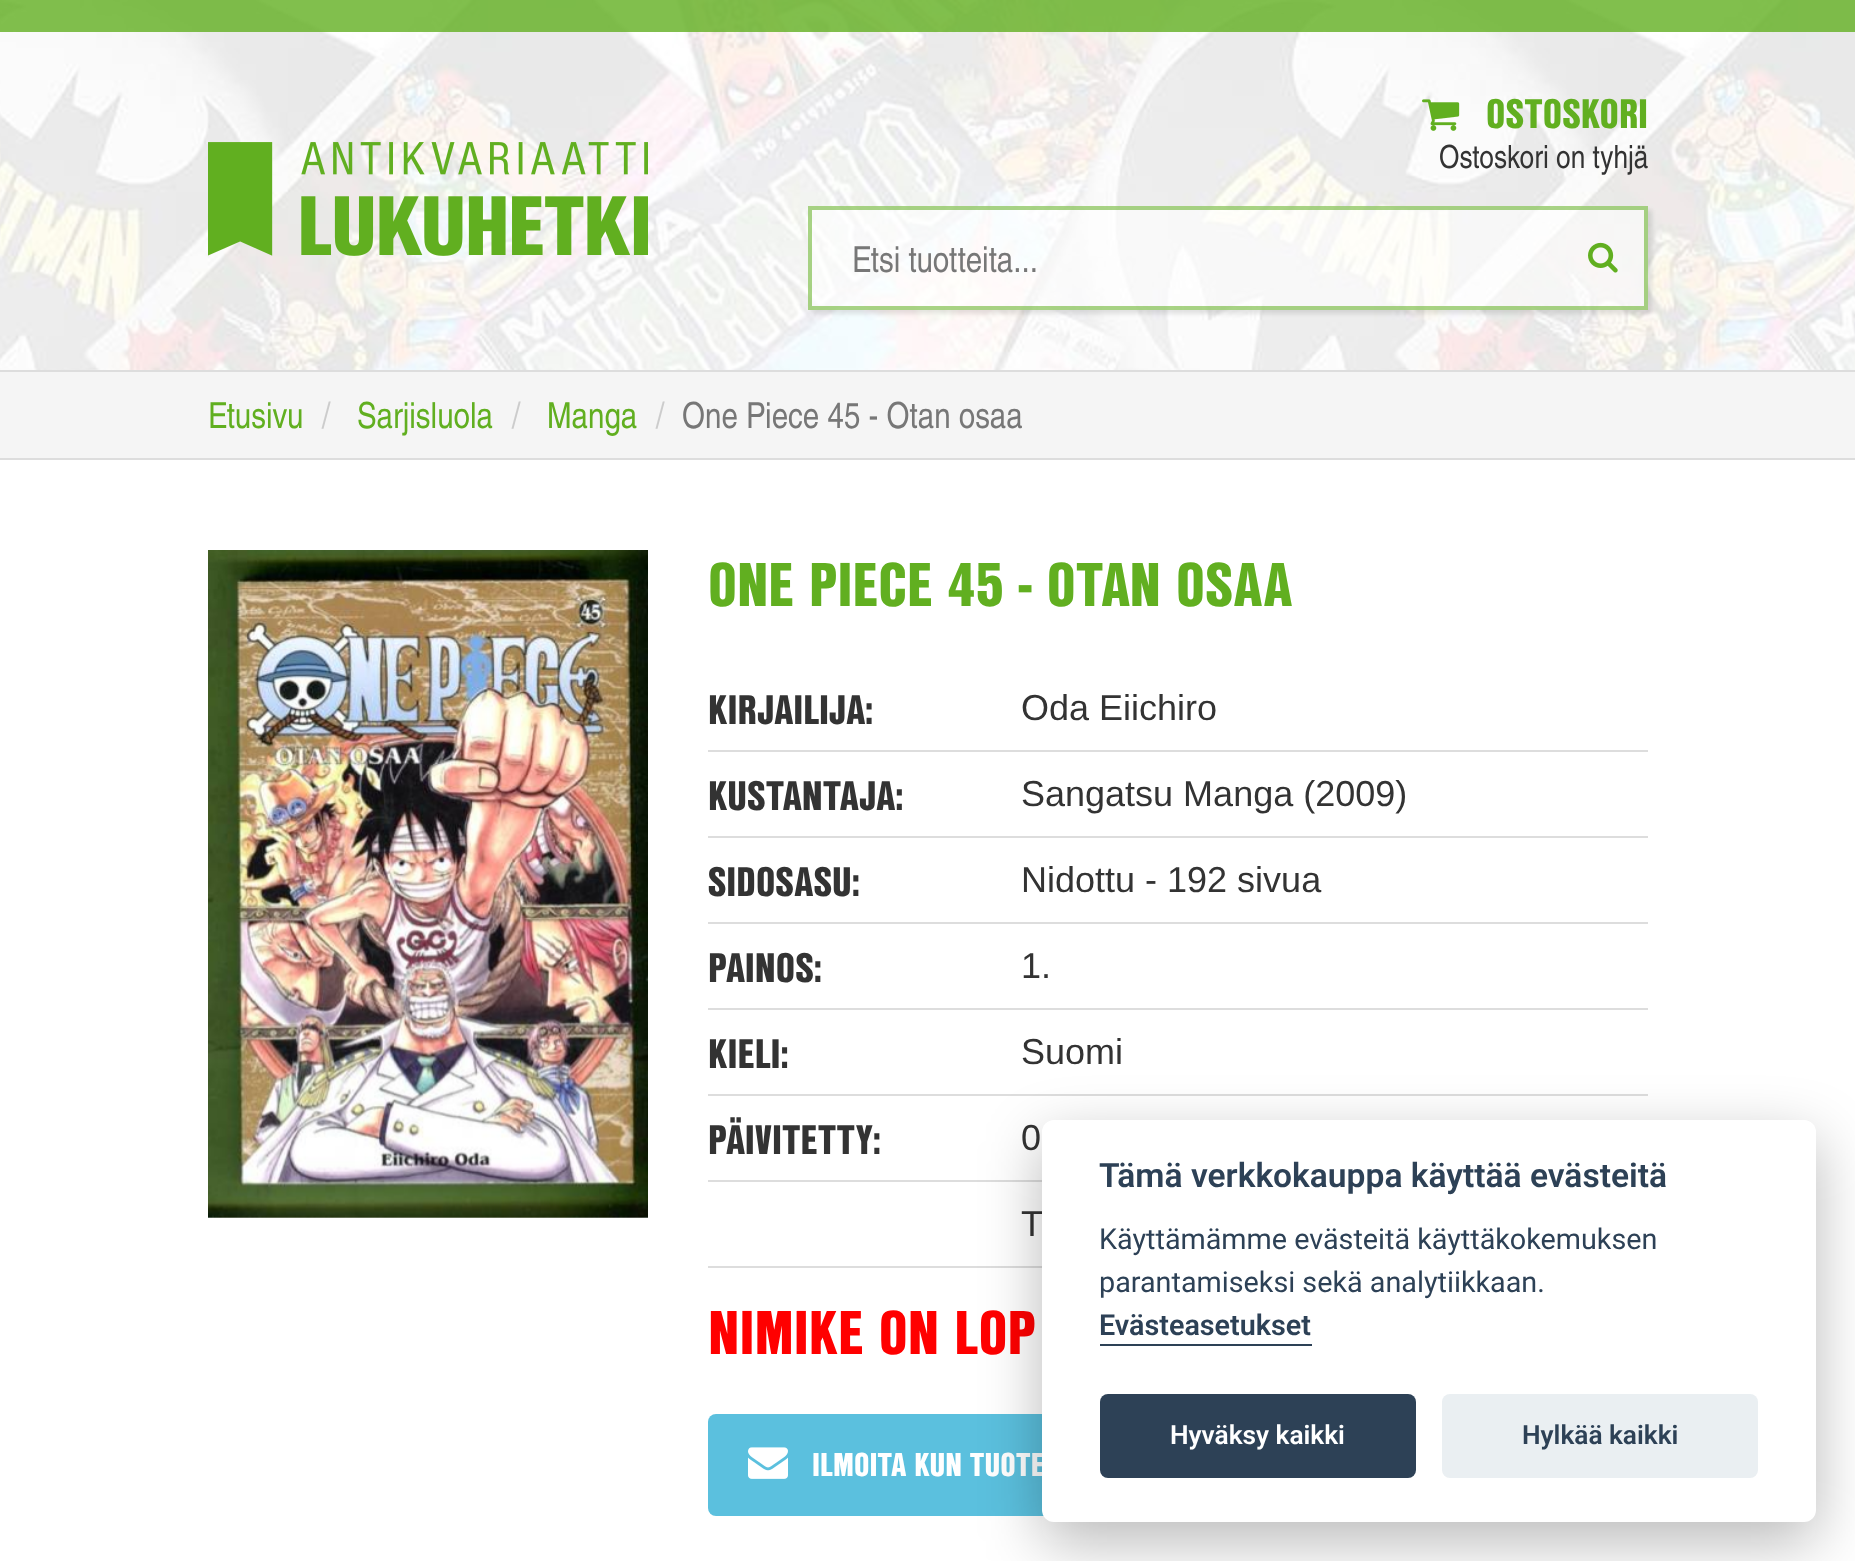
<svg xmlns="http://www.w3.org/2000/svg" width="1855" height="1561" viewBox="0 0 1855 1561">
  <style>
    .t1 { font: 900 40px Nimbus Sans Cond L; fill: #61af20; }
    .t2 { font: 32px Nimbus Sans Cond L; fill: #333; }
    .t3 { font: 36px Nimbus Sans Cond L; fill: #777; }
    .t4 { font: 36px Nimbus Sans Cond L; fill: #61af20; }
    .t5 { font: 36px Nimbus Sans Cond L; fill: #ccc; }
    .t6 { font: 900 60px Nimbus Sans Cond L; fill: #61af20; }
    .t7 { font: 900 40px Nimbus Sans Cond L; fill: #333; }
    .t8 { font: 36px Liberation Sans; fill: #333; }
    .t9 { font: 900 60px Nimbus Sans Cond L; fill: #f00; }
    .t10 { font: 900 32px Nimbus Sans Cond L; fill: #fff; }
    .t11 { font: 600 33.6px Roboto; fill: #2d4156; }
    .t12 { font: 28.75px Roboto; fill: #2d4156; }
    .t13 { font: 600 28.75px Roboto; fill: #2d4156; }
    .t14 { font: 600 26.25px Roboto; fill: #fff; }
    .t15 { font: 600 26.25px Roboto; fill: #2d4156; }
  </style>
  <defs>
    <clipPath id="clip1"><path d="M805 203H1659V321H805ZM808 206H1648V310H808Z" clip-rule="evenodd"/></clipPath>
  </defs>
  <rect width="100%" height="100%" fill="#fff"/>
  <image x="0" y="0" width="1855" height="370" href="images/1.png"/>
  <rect x="0" y="0" width="1855" height="32" fill="#61af20cc"/>
  <image x="208" y="142" width="440" height="114" href="images/2.png"/>
  <image x="1422" y="99" width="38" height="32" href="images/3.png"/>
  <text x="1486" y="128" class="t1">OSTOSKORI</text>
  <text x="1439" y="168" class="t2">Ostoskori on tyhjä</text>
  <g clip-path="url(#clip1)">
    <rect x="812" y="210" width="840" height="104" fill="#0000001a" filter="blur(2px)"/>
  </g>
  <rect x="808" y="206" width="840" height="104" fill="#ffffff99"/>
  <rect x="810" y="208" width="836" height="100" fill="none" stroke="#61af208c" stroke-width="4"/>
  <text x="852" y="272" class="t3">Etsi tuotteita...</text>
  <image x="1588" y="242" width="30" height="31" href="images/4.png"/>
  <rect x="0" y="372" width="1855" height="86" fill="#f5f5f5"/>
  <rect x="0" y="370" width="1855" height="2" fill="#ddd"/>
  <rect x="0" y="458" width="1855" height="2" fill="#ddd"/>
  <text x="208" y="428" class="t4">Etusivu</text>
  <text x="322" y="428" class="t5">/</text>
  <text x="357" y="428" class="t4">Sarjisluola</text>
  <text x="512" y="428" class="t5">/</text>
  <text x="547" y="428" class="t4">Manga</text>
  <text x="656" y="428" class="t5">/</text>
  <text x="682" y="428" class="t3">One Piece 45 - Otan osaa</text>
  <image x="208" y="550" width="440" height="668" href="images/5.png"/>
  <text x="708" y="606" class="t6">ONE PIECE 45 - OTAN OSAA</text>
  <rect x="708" y="750" width="940" height="2" fill="#ddd"/>
  <text x="708" y="724" class="t7">KIRJAILIJA:</text>
  <text x="1021" y="720" class="t8">Oda Eiichiro</text>
  <rect x="708" y="836" width="940" height="2" fill="#ddd"/>
  <text x="708" y="810" class="t7">KUSTANTAJA:</text>
  <text x="1021" y="806" class="t8">Sangatsu Manga (2009)</text>
  <rect x="708" y="922" width="940" height="2" fill="#ddd"/>
  <text x="708" y="896" class="t7">SIDOSASU:</text>
  <text x="1021" y="892" class="t8">Nidottu - 192 sivua</text>
  <rect x="708" y="1008" width="940" height="2" fill="#ddd"/>
  <text x="708" y="982" class="t7">PAINOS:</text>
  <text x="1021" y="978" class="t8">1.</text>
  <rect x="708" y="1094" width="940" height="2" fill="#ddd"/>
  <text x="708" y="1068" class="t7">KIELI:</text>
  <text x="1021" y="1064" class="t8">Suomi</text>
  <rect x="708" y="1180" width="334" height="2" fill="#ddd"/>
  <text x="708" y="1154" class="t7">PÄIVITETTY:</text>
  <text x="1021" y="1150" class="t8">0</text>
  <rect x="708" y="1266" width="334" height="2" fill="#ddd"/>
  <text x="1021" y="1236" class="t8">T</text>
  <text x="708" y="1354" class="t9">NIMIKE ON LOP</text>
  <rect x="708" y="1414" width="604" height="102" rx="8" fill="#5bc0de"/>
  <image x="748" y="1447" width="40" height="32" href="images/6.png"/>
  <text x="812" y="1476" class="t10">ILMOITA KUN TUOTE</text>
  <rect x="1042" y="1140" width="774" height="402" rx="12" fill="#02020347" filter="blur(30px)"/>
  <rect x="1042" y="1120" width="774" height="402" rx="12" fill="#fff"/>
  <text x="1099" y="1187" class="t11">Tämä verkkokauppa käyttää evästeitä</text>
  <text x="1099" y="1249" class="t12">Käyttämämme evästeitä käyttäkokemuksen</text>
  <text x="1099" y="1292" class="t12">parantamiseksi sekä analytiikkaan.</text>
  <text x="1099" y="1335" class="t13">Evästeasetukset</text>
  <rect x="1100" y="1344" width="212" height="2" fill="#2d4156"/>
  <rect x="1100" y="1394" width="316" height="84" rx="8" fill="#2d4156"/>
  <text x="1170" y="1444" class="t14">Hyväksy kaikki</text>
  <rect x="1442" y="1394" width="316" height="84" rx="8" fill="#eaeff2"/>
  <text x="1522" y="1444" class="t15">Hylkää kaikki</text>
</svg>
